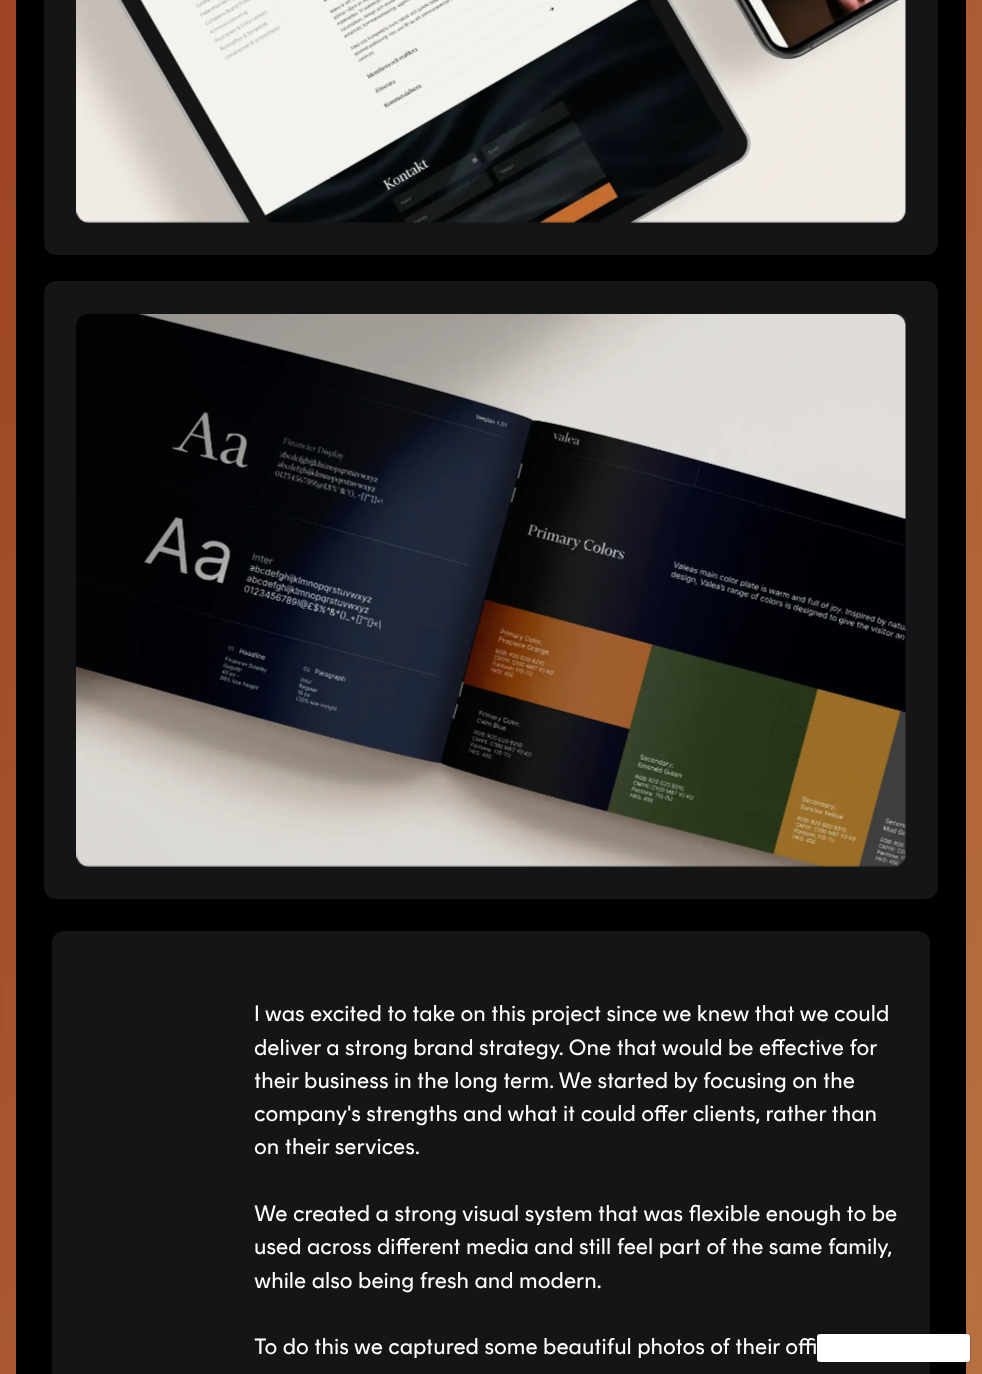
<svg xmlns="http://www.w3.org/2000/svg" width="982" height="1374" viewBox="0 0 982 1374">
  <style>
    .t1 { font: 22.2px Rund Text; fill: #fff; }
  </style>
  <rect width="100%" height="100%" fill="#fff"/>
  <image x="0" y="0" width="982" height="1374" href="images/1.png"/>
  <rect x="16" y="0" width="950" height="1374" fill="#010001"/>
  <rect x="44" y="-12" width="894" height="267" rx="12" fill="#141516"/>
  <image x="76" y="0" width="830" height="223" href="images/2.png"/>
  <rect x="44" y="281" width="894" height="618" rx="12" fill="#141516"/>
  <image x="76" y="314" width="830" height="553" href="images/3.png"/>
  <rect x="52" y="931" width="878" height="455" rx="12" fill="#141516"/>
  <text x="254" y="1021" class="t1">I was excited to take on this project since we knew that we could</text>
  <text x="254" y="1055" class="t1">deliver a strong brand strategy. One that would be effective for</text>
  <text x="254" y="1088" class="t1">their business in the long term. We started by focusing on the</text>
  <text x="254" y="1121" class="t1">company's strengths and what it could offer clients, rather than</text>
  <text x="254" y="1154" class="t1">on their services.</text>
  <text x="254" y="1221" class="t1">We created a strong visual system that was flexible enough to be</text>
  <text x="254" y="1254" class="t1">used across different media and still feel part of the same family,</text>
  <text x="254" y="1288" class="t1">while also being fresh and modern.</text>
  <text x="254" y="1354" class="t1">To do this we captured some beautiful photos of their offi</text>
  <rect x="817" y="1335" width="153" height="28" rx="3" fill="#0000001a" filter="blur(1.5px)"/>
  <rect x="816.5" y="1333.5" width="154" height="29" rx="3.5" fill="none" stroke="#0000001a"/>
  <rect x="817" y="1334" width="153" height="28" rx="3" fill="#fff"/>
</svg>
